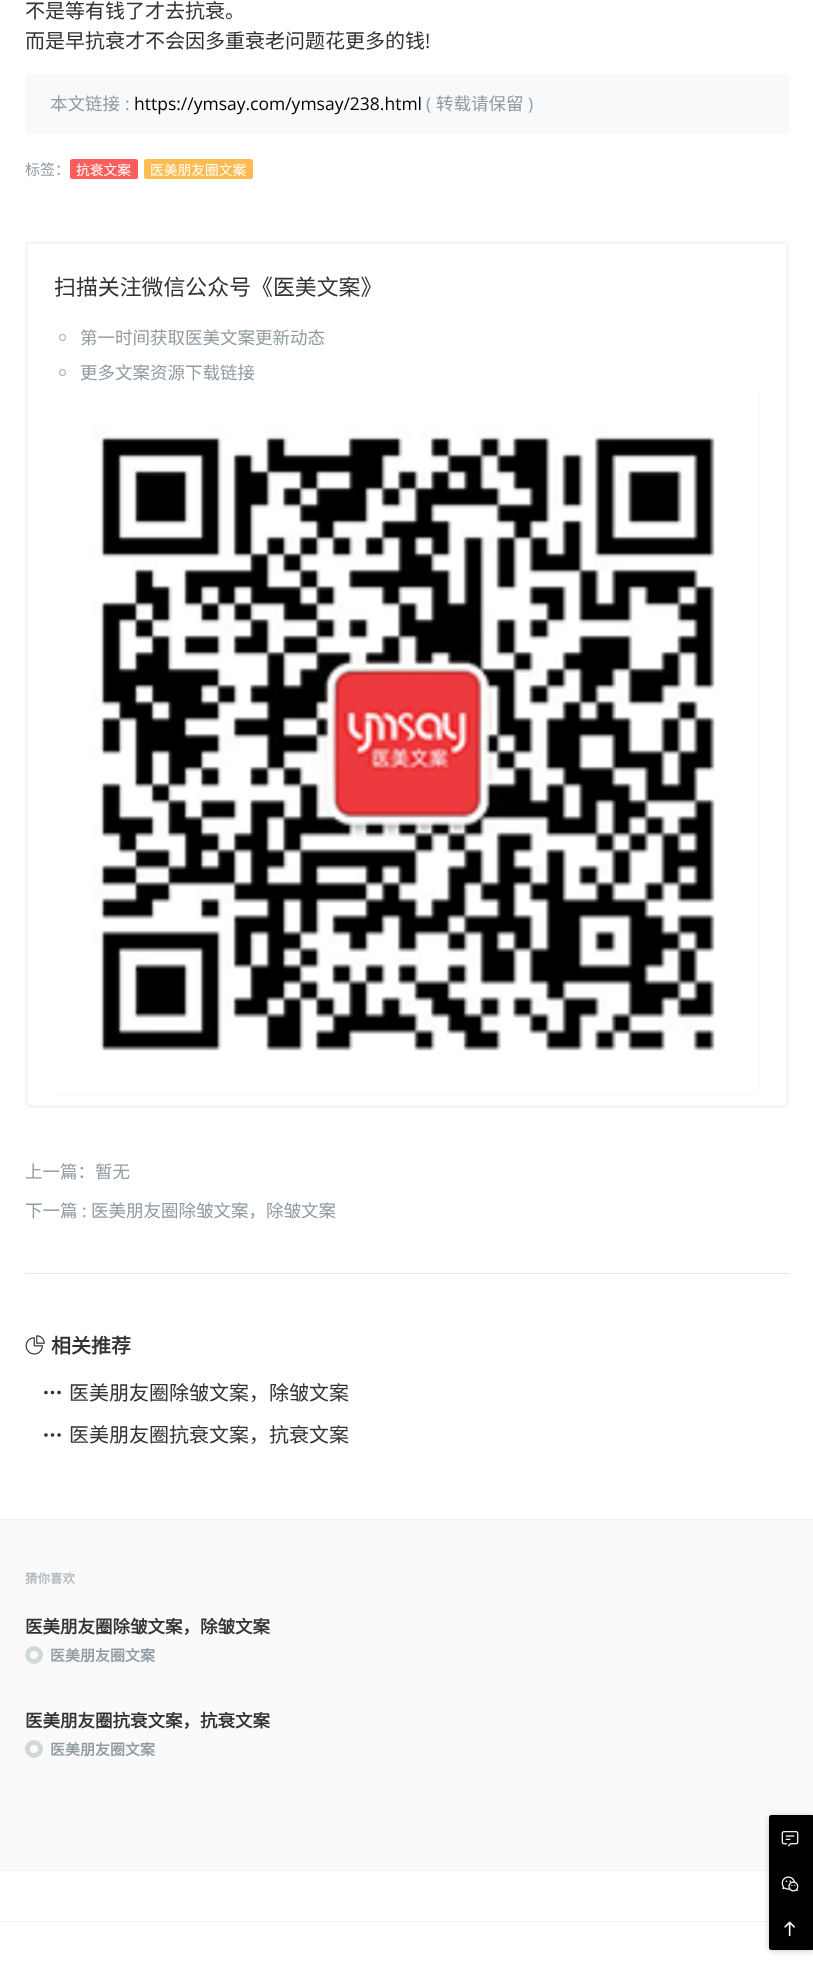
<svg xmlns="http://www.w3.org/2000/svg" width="813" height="1974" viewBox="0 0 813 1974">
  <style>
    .t1 { font: 20px Noto Sans CJK SC; fill: #333; }
    .t2 { font: 20px Open Sans; fill: #333; }
    .t3 { font: 17.5px Noto Sans CJK SC; fill: #919ba2; }
    .t4 { font: 17.5px Open Sans; fill: #919ba2; }
    .t5 { font: 17.5px Open Sans; fill: #000; }
    .t6 { font: 15px Noto Sans CJK SC; fill: #919ba2; }
    .t7 { font: 13.75px Noto Sans CJK SC; fill: #fff; }
    .t8 { font: 21.9px Noto Sans CJK SC; fill: #333; }
    .t9 { font: bold 20px Noto Sans CJK SC; fill: #333; }
    .t10 { font: bold 12.5px Noto Sans CJK SC; fill: #b1b7bc; }
    .t11 { font: bold 17.5px Noto Sans CJK SC; fill: #333; }
    .t12 { font: bold 15px Noto Sans CJK SC; fill: #919ba2; }
  </style>
  <rect width="100%" height="100%" fill="#fff"/>
  <text x="25" y="18" class="t1">不是等有钱了才去抗衰。</text>
  <text x="25" y="48" class="t1">而是早抗衰才不会因多重衰老问题花更多的钱</text>
  <text x="425" y="48" class="t2">!</text>
  <rect x="25" y="74" width="764" height="60" rx="4" fill="#f7f9fa"/>
  <text x="50" y="110" class="t3">本文链接</text>
  <text x="125" y="110" class="t4">:</text>
  <text x="134" y="110" class="t5">https://ymsay.com/ymsay/238.html</text>
  <text x="426" y="110" class="t4">(</text>
  <text x="436" y="110" class="t3">转载请保留</text>
  <text x="528" y="110" class="t4">)</text>
  <text x="25" y="175" class="t6">标签：</text>
  <rect x="70" y="159" width="68" height="20" rx="2.5" fill="#ff5e5c"/>
  <text x="76" y="175" class="t7">抗衰文案</text>
  <rect x="144" y="159" width="109" height="20" rx="2.5" fill="#ffbb50"/>
  <text x="150" y="175" class="t7">医美朋友圈文案</text>
  <rect x="26.5" y="242.5" width="761" height="864" rx="3.5" fill="none" stroke="#f5f5fd" stroke-width="3"/>
  <text x="54" y="295" class="t8">扫描关注微信公众号《医美文案》</text>
  <circle cx="62.5" cy="337.5" r="3" fill="none" stroke="#919ba2"/>
  <text x="80" y="344" class="t3">第一时间获取医美文案更新动态</text>
  <circle cx="62.5" cy="372.5" r="3" fill="none" stroke="#919ba2"/>
  <text x="80" y="379" class="t3">更多文案资源下载链接</text>
  <rect x="54" y="390" width="706" height="706" fill="#fafafa"/>
  <image x="54" y="390" width="705" height="705" href="images/1.png"/>
  <rect x="25" y="1273" width="764" height="1" fill="#e7e7e7"/>
  <text x="25" y="1178" class="t3">上一篇：暂无</text>
  <text x="25" y="1217" class="t3">下一篇</text>
  <text x="82" y="1217" class="t4">:</text>
  <text x="91" y="1217" class="t3">医美朋友圈除皱文案，除皱文案</text>
  <image x="25" y="1335" width="20" height="20" href="images/2.png"/>
  <text x="51" y="1353" class="t9">相关推荐</text>
  <image x="44" y="1390" width="17" height="5" href="images/3.png"/>
  <text x="69" y="1400" class="t1">医美朋友圈除皱文案，除皱文案</text>
  <image x="44" y="1433" width="17" height="4" href="images/4.png"/>
  <text x="69" y="1442" class="t1">医美朋友圈抗衰文案，抗衰文案</text>
  <rect x="0" y="1520" width="813" height="350" fill="#fafafa"/>
  <rect x="0" y="1519" width="813" height="1" fill="#f2f2f2"/>
  <rect x="0" y="1870" width="769" height="1" fill="#f2f2f2"/>
  <text x="25" y="1583" class="t10">猜你喜欢</text>
  <text x="25" y="1633" class="t11">医美朋友圈除皱文案，除皱文案</text>
  <circle cx="34" cy="1655" r="6.5" fill="none" stroke="#d0d8d8" stroke-width="5"/>
  <text x="50" y="1661" class="t12">医美朋友圈文案</text>
  <text x="25" y="1727" class="t11">医美朋友圈抗衰文案，抗衰文案</text>
  <circle cx="34" cy="1749" r="6.5" fill="none" stroke="#d0d8d8" stroke-width="5"/>
  <text x="50" y="1755" class="t12">医美朋友圈文案</text>
  <rect x="0" y="1921" width="769" height="1" fill="#f2f2f2"/>
  <rect x="769" y="1816" width="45" height="135" rx="2.5" fill="#00000033" filter="blur(3px)"/>
  <rect x="769" y="1815" width="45" height="135" rx="2.5" fill="#000"/>
  <image x="781" y="1831" width="18" height="16" href="images/5.png"/>
  <image x="781" y="1876" width="18" height="16" href="images/6.png"/>
  <image x="784" y="1921" width="11" height="16" href="images/7.png"/>
</svg>
